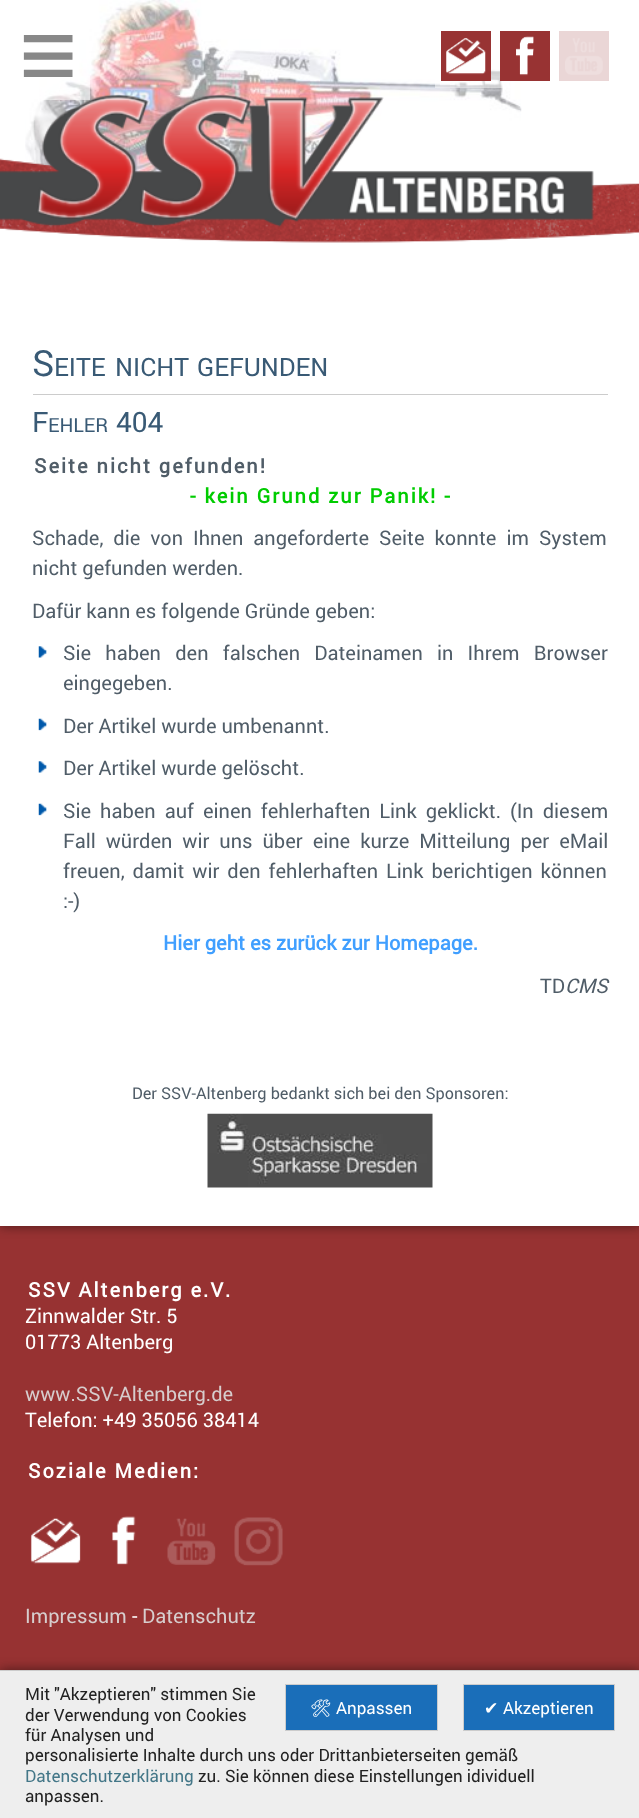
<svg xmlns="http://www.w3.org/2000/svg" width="639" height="1818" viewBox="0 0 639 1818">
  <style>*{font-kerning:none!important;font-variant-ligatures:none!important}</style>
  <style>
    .t1 { font: 100px Liberation Sans; fill: #888; }
    .t2 { font: 36px roboto; fill: #395a75; }
    .t3 { font: 25.25px roboto; fill: #395a75; }
    .t4 { font: 28px roboto; fill: #395a75; }
    .t5 { font: 19.5px roboto; fill: #395a75; }
    .t6 { font: bold 20px roboto; letter-spacing: 2px; fill: #505d68; }
    .t7 { font: bold 20px roboto; letter-spacing: 2px; fill: #0c0; }
    .t8 { font: 20px roboto; fill: #505d68; }
    .t9 { font: bold 20px roboto; fill: #409fff; }
    .t10 { font: italic 20px roboto; fill: #505d68; }
    .t11 { font: 16.25px roboto; fill: #505d68; }
    .t12 { font: bold 20px roboto; letter-spacing: 2px; fill: #fff; }
    .t13 { font: 20px roboto; fill: #fff; }
    .t14 { font: 20px roboto; fill: #d7cdcd; }
    .t15 { font: 17px roboto; fill: #222; }
    .t16 { font: 500 17px Noto Emoji; fill: #fff; }
    .t17 { font: 17px roboto; fill: #fff; }
    .t18 { font: 17px DejaVu Sans; fill: #fff; }
    .t19 { font: 17px roboto; fill: #478; }
  </style>
  <rect width="100%" height="100%" fill="#973232"/>
  <rect x="0" y="0" width="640" height="1226" fill="#00000080" filter="blur(6px)"/>
  <rect x="0" y="0" width="639" height="1226" fill="#fff"/>
  <image x="25" y="0" width="497" height="173" href="images/1.png"/>
  <image x="0" y="94" width="639" height="149" href="images/2.png"/>
  <rect x="40" y="76" width="50" height="24" fill="#ffffff99"/>
  <text x="19" y="89" class="t1">≡</text>
  <rect x="435" y="70" width="75" height="18" fill="#ffffff80"/>
  <rect x="441" y="31" width="50" height="50" fill="#983333"/>
  <rect x="500" y="31" width="50" height="50" fill="#983333"/>
  <rect x="559" y="31" width="50" height="50" fill="#ead6d6"/>
  <image x="446" y="37" width="40" height="38" href="images/3.png"/>
  <image x="516" y="36" width="18" height="40" href="images/4.png"/>
  <image x="565" y="38" width="38" height="37" href="images/5.png"/>
  <text x="32" y="376" class="t2">S</text>
  <text x="54" y="376" class="t3">EITE</text>
  <text x="115" y="376" class="t3">NICHT</text>
  <text x="197" y="376" class="t3">GEFUNDEN</text>
  <rect x="33" y="394" width="575" height="1" fill="#ccc"/>
  <text x="32" y="432" class="t4">F</text>
  <text x="48" y="432" class="t5">EHLER</text>
  <text x="116" y="432" class="t4">404</text>
  <text x="34" y="473" class="t6">Seite nicht gefunden!</text>
  <text x="190" y="503" class="t7">- kein Grund zur Panik! -</text>
  <text x="32" y="545" word-spacing="5" class="t8">Schade, die von Ihnen angeforderte Seite konnte im System</text>
  <text x="32" y="575" class="t8">nicht gefunden werden.</text>
  <text x="32" y="618" class="t8">Dafür kann es folgende Gründe geben:</text>
  <image x="38" y="646" width="9" height="12" href="images/6.png"/>
  <text x="63" y="660" word-spacing="9.25" class="t8">Sie haben den falschen Dateinamen in Ihrem Browser</text>
  <text x="63" y="690" class="t8">eingegeben.</text>
  <image x="38" y="718" width="9" height="13" href="images/7.png"/>
  <text x="63" y="733" class="t8">Der Artikel wurde umbenannt.</text>
  <image x="38" y="761" width="9" height="12" href="images/6.png"/>
  <text x="63" y="775" class="t8">Der Artikel wurde gelöscht.</text>
  <image x="38" y="803" width="9" height="13" href="images/7.png"/>
  <text x="63" y="818" word-spacing="4" class="t8">Sie haben auf einen fehlerhaften Link geklickt. (In diesem</text>
  <text x="63" y="848" word-spacing="5" class="t8">Fall würden wir uns über eine kurze Mitteilung per eMail</text>
  <text x="63" y="878" word-spacing="3" class="t8">freuen, damit wir den fehlerhaften Link berichtigen können</text>
  <text x="63" y="908" class="t8">:-)</text>
  <text x="163" y="950" class="t9">Hier geht es zurück zur Homepage.</text>
  <text x="540" y="993" class="t8">TD</text>
  <text x="565" y="993" class="t10">CMS</text>
  <text x="132" y="1099" class="t11">Der SSV-Altenberg bedankt sich bei den Sponsoren:</text>
  <image x="207" y="1113" width="226" height="75" href="images/8.png"/>
  <text x="28" y="1297" class="t12">SSV Altenberg e.V.</text>
  <text x="25" y="1323" class="t13">Zinnwalder Str. 5</text>
  <text x="25" y="1349" class="t13">01773 Altenberg</text>
  <text x="25" y="1401" class="t14">www.SSV-Altenberg.de</text>
  <text x="25" y="1427" class="t13">Telefon: +49 35056 38414</text>
  <text x="28" y="1478" class="t12">Soziale Medien:</text>
  <image x="30" y="1518" width="51" height="46" href="images/9.png"/>
  <image x="112" y="1516" width="24" height="49" href="images/10.png"/>
  <image x="167" y="1518" width="49" height="47" href="images/11.png"/>
  <image x="234" y="1517" width="49" height="49" href="images/12.png"/>
  <text x="25" y="1623" class="t14">Impressum</text>
  <text x="132" y="1623" class="t13">-</text>
  <text x="142" y="1623" class="t14">Datenschutz</text>
  <rect x="0" y="1670" width="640" height="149" fill="#00000080" filter="blur(6px)"/>
  <rect x="0" y="1671" width="639" height="147" fill="#eee"/>
  <rect x="0" y="1670" width="639" height="1" fill="#ccc"/>
  <text x="25" y="1700" class="t15">Mit "Akzeptieren" stimmen Sie</text>
  <text x="25" y="1721" class="t15">der Verwendung von Cookies</text>
  <rect x="285.5" y="1684.5" width="152" height="46" fill="#1a6eb9" stroke="#ccc"/>
  <text x="310" y="1714" class="t16">🛠</text>
  <text x="336" y="1714" class="t17">Anpassen</text>
  <rect x="463.5" y="1684.5" width="151" height="46" fill="#1a6eb9" stroke="#ccc"/>
  <text x="484" y="1714" class="t18">✔</text>
  <text x="503" y="1714" class="t17">Akzeptieren</text>
  <text x="25" y="1741" class="t15">für Analysen und</text>
  <text x="25" y="1761" class="t15">personalisierte Inhalte durch uns oder Drittanbieterseiten gemäß</text>
  <text x="25" y="1782" class="t19">Datenschutzerklärung</text>
  <text x="198" y="1782" class="t15">zu. Sie können diese Einstellungen idividuell</text>
  <text x="25" y="1802" class="t15">anpassen.</text>
</svg>
